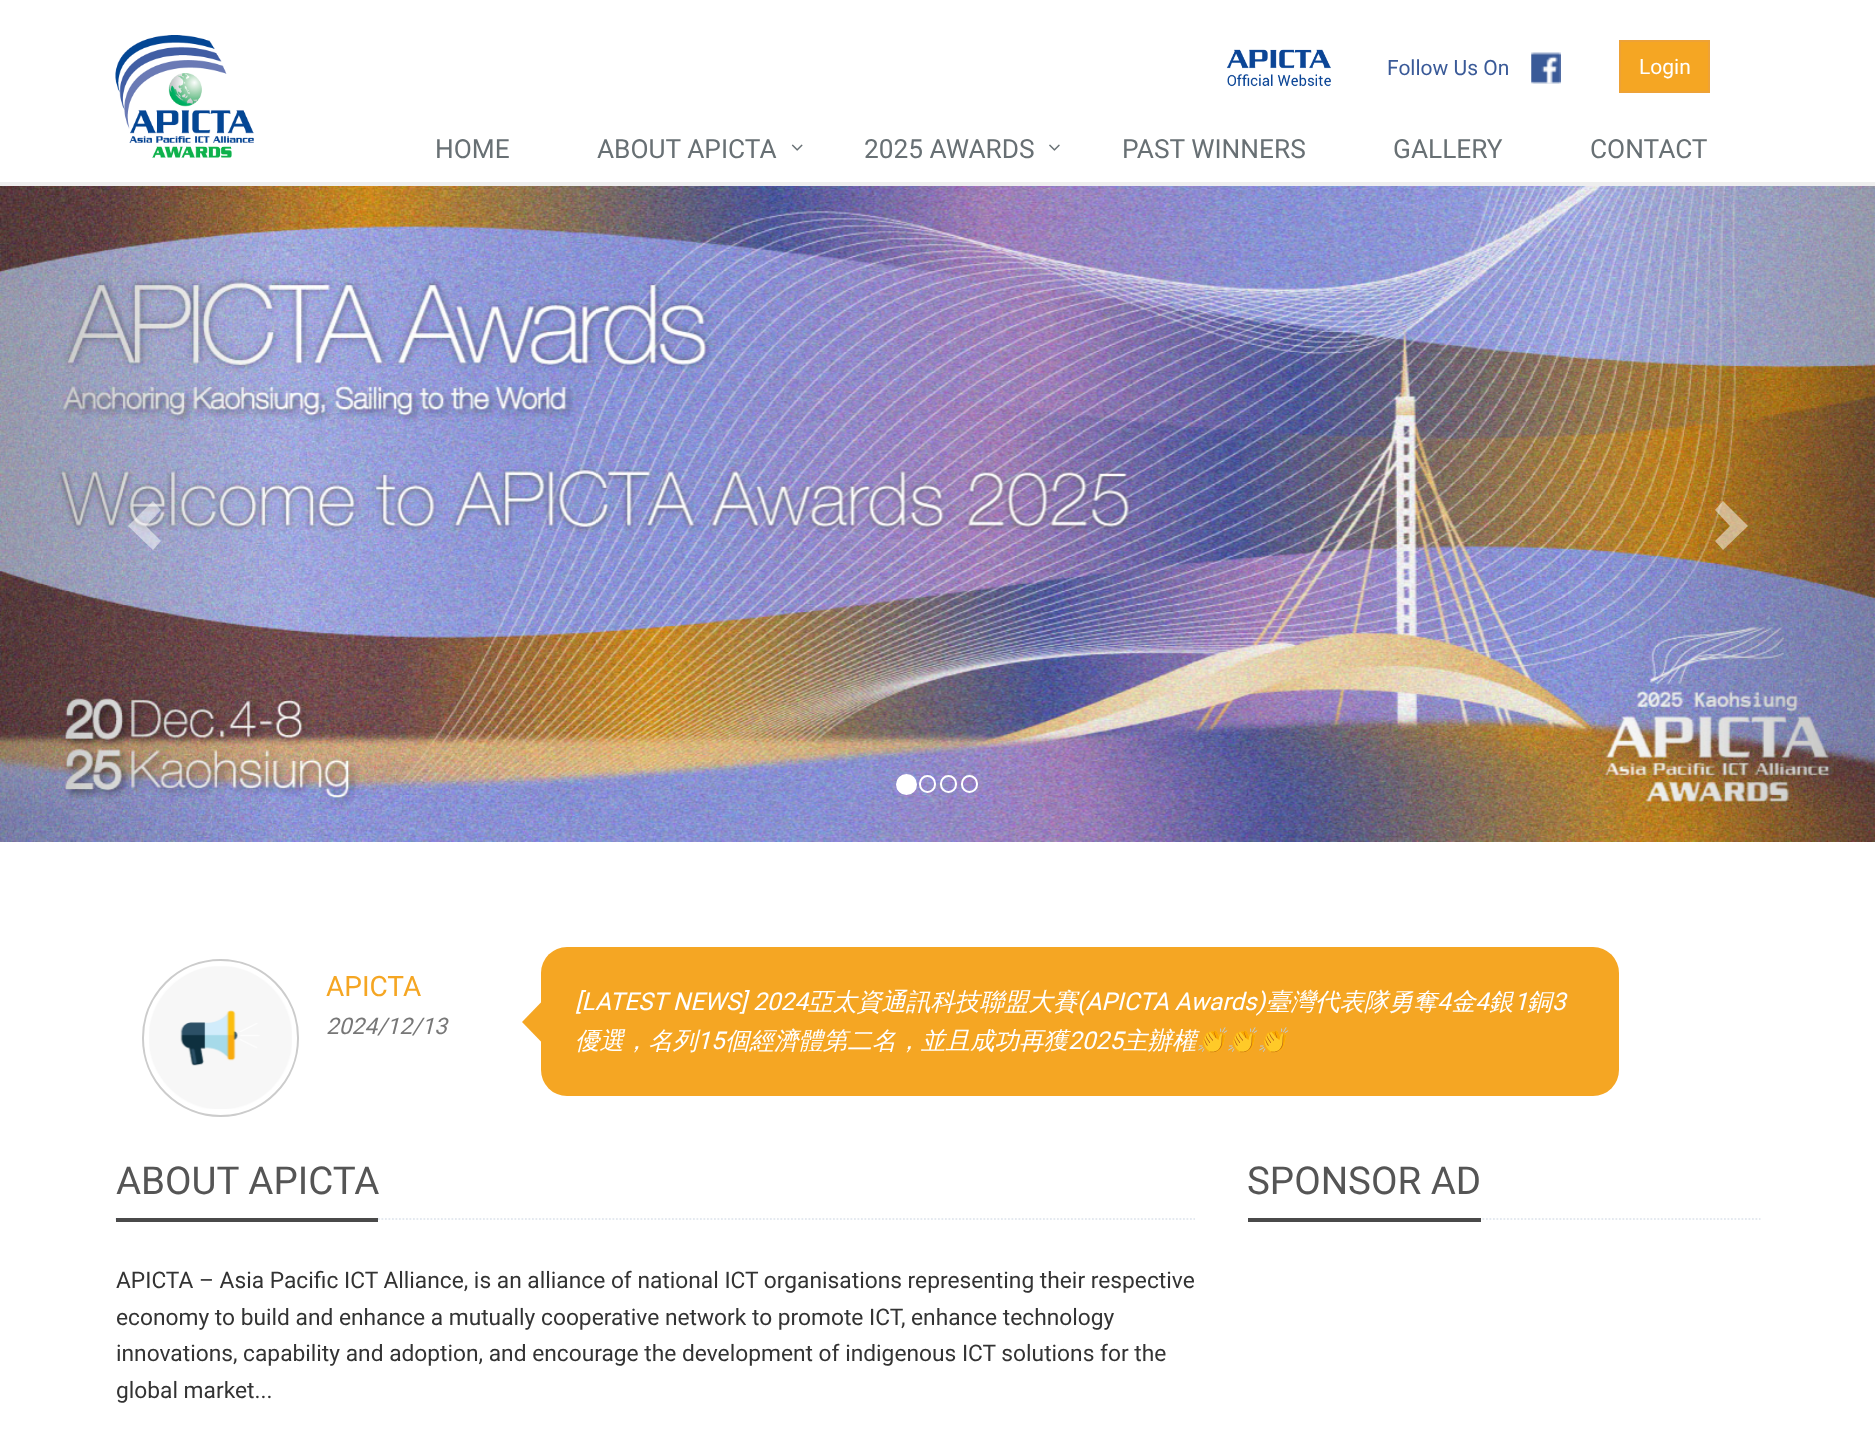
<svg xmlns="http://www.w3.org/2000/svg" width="1875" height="1451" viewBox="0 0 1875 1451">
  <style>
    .t1 { font: 21px Roboto; fill: #3a5a98; }
    .t2 { font: 21px Roboto; fill: #fff; }
    .t3 { font: 26.25px Roboto; fill: #687074; }
    .t4 { font: 28px Roboto; fill: #f5a623; }
    .t5 { font: italic 22.75px Roboto; fill: #777; }
    .t6 { font: italic 24.5px Roboto; fill: #fff; }
    .t7 { font: italic 500 24.5px WenQuanYi Zen Hei; fill: #fff; }
    .t8 { font: italic 24.5px Noto Color Emoji; fill: #fff; }
    .t9 { font: 38.5px Roboto; fill: #555; }
    .t10 { font: 22.75px Roboto; fill: #333; }
  </style>
  <rect width="100%" height="100%" fill="#fff"/>
  <rect x="0" y="182" width="1875" height="4" fill="#eee"/>
  <image x="115" y="35" width="139" height="123" href="images/1.png"/>
  <image x="1226" y="49" width="105" height="38" href="images/2.png"/>
  <text x="1387" y="75" class="t1">Follow Us On</text>
  <image x="1531" y="52" width="30" height="32" href="images/3.png"/>
  <rect x="1620" y="41" width="89" height="51" fill="#f5a623" stroke="#eea236" stroke-width="2"/>
  <text x="1639" y="74" class="t2">Login</text>
  <text x="435" y="158" class="t3">HOME</text>
  <text x="597" y="158" class="t3">ABOUT APICTA</text>
  <image x="791" y="144" width="12" height="7" href="images/4.png"/>
  <text x="864" y="158" class="t3">2025 AWARDS</text>
  <image x="1049" y="144" width="11" height="7" href="images/5.png"/>
  <text x="1122" y="158" class="t3">PAST WINNERS</text>
  <text x="1393" y="158" class="t3">GALLERY</text>
  <text x="1590" y="158" class="t3">CONTACT</text>
  <image x="0" y="186" width="1875" height="656" href="images/6.png"/>
  <path d="M161 510L146 526L161 541L153 550L128 526L153 501Z" fill="#ffffff80"/>
  <path d="M1748 526L1723 550L1715 541L1730 526L1715 510L1723 501Z" fill="#ffffff80"/>
  <circle cx="906.5" cy="784.5" r="9.5" fill="#fff" stroke="#fff" stroke-width="2"/>
  <rect x="920" y="776" width="15" height="16" rx="7.5" fill="none" stroke="#fff" stroke-width="2"/>
  <rect x="941" y="776" width="15" height="16" rx="7.5" fill="none" stroke="#fff" stroke-width="2"/>
  <rect x="962" y="776" width="15" height="16" rx="7.5" fill="none" stroke="#fff" stroke-width="2"/>
  <rect x="143" y="960" width="155" height="156" rx="77.5" fill="none" stroke="#ccc" stroke-width="2"/>
  <image x="149" y="966" width="143" height="143" href="images/7.png"/>
  <text x="326" y="996" class="t4">APICTA</text>
  <text x="326" y="1034" class="t5">2024/12/13</text>
  <rect x="541" y="947" width="1078" height="149" rx="26" fill="#f5a623"/>
  <path d="M553 990V1054L522 1022Z" fill="#f5a623"/>
  <text x="575" y="1010" class="t6">[LATEST NEWS] 2024</text>
  <text x="808" y="1010" class="t7">亞太資通訊科技聯盟大賽</text>
  <text x="1077" y="1010" class="t6">(APICTA Awards)</text>
  <text x="1266" y="1010" class="t7">臺灣代表隊勇奪</text>
  <text x="1437" y="1010" class="t6">4</text>
  <text x="1451" y="1010" class="t7">金</text>
  <text x="1475" y="1010" class="t6">4</text>
  <text x="1489" y="1010" class="t7">銀</text>
  <text x="1514" y="1010" class="t6">1</text>
  <text x="1527" y="1010" class="t7">銅</text>
  <text x="1552" y="1010" class="t6">3</text>
  <text x="575" y="1049" class="t7">優選，名列</text>
  <text x="697" y="1049" class="t6">15</text>
  <text x="725" y="1049" class="t7">個經濟體第二名，並且成功再獲</text>
  <text x="1068" y="1049" class="t6">2025</text>
  <text x="1123" y="1049" class="t7">主辦權</text>
  <text x="1196" y="1049" class="t8">👏👏👏</text>
  <path d="M115.5 1219H1195" fill="none" stroke="#e4e9f0" stroke-width="1.8" stroke-dasharray="1.75 1.75"/>
  <rect x="116" y="1218" width="262" height="4" fill="#4a4a4a"/>
  <text x="116" y="1194" class="t9">ABOUT APICTA</text>
  <text x="116" y="1288" class="t10">APICTA – Asia Pacific ICT Alliance, is an alliance of national ICT organisations representing their respective</text>
  <text x="116" y="1325" class="t10">economy to build and enhance a mutually cooperative network to promote ICT, enhance technology</text>
  <text x="116" y="1361" class="t10">innovations, capability and adoption, and encourage the development of indigenous ICT solutions for the</text>
  <text x="116" y="1398" class="t10">global market...</text>
  <path d="M1248 1219H1760.5" fill="none" stroke="#e4e9f0" stroke-width="1.8" stroke-dasharray="1.75 1.75"/>
  <rect x="1248" y="1218" width="233" height="4" fill="#4a4a4a"/>
  <text x="1247" y="1194" class="t9">SPONSOR AD</text>
</svg>
